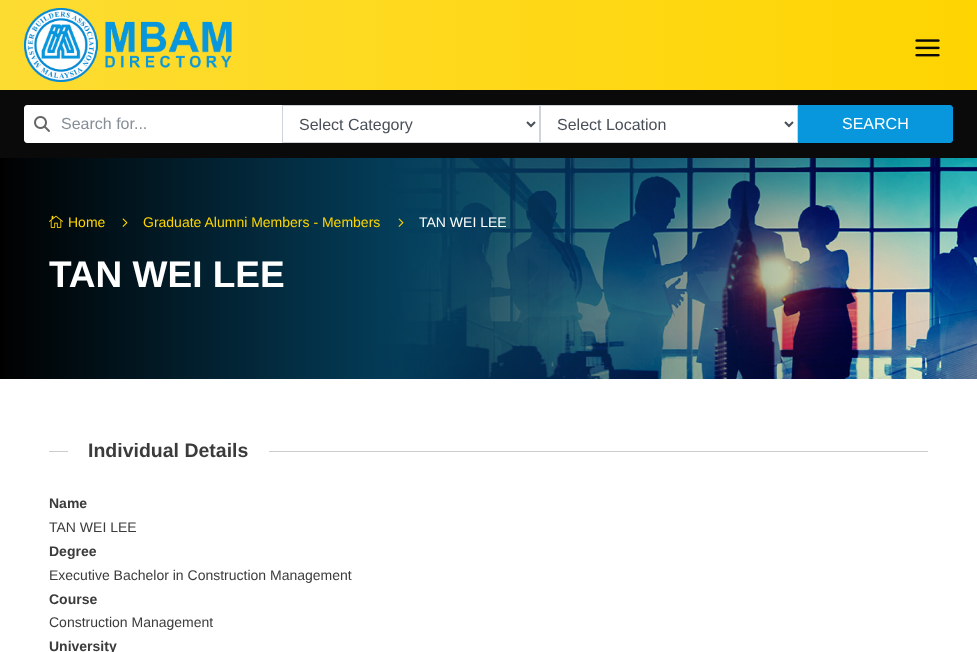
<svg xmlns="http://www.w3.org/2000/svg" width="977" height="652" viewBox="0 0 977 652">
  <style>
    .t1 { font: 16px Liberation Sans; fill: #868e96; }
    .t2 { font: 16px Liberation Sans; fill: #495057; }
    .t3 { font: 16px Liberation Sans; fill: #fff; }
    .t4 { font: 14px Liberation Sans; fill: #fed501; }
    .t5 { font: 14px Liberation Sans; fill: #fff; }
    .t6 { font: bold 37px Liberation Sans; fill: #fff; }
    .t7 { font: bold 19.5px Liberation Sans; fill: #3b3b3b; }
    .t8 { font: bold 14px Liberation Sans; fill: #3b3b3b; }
    .t9 { font: 14px Liberation Sans; fill: #3b3b3b; }
  </style>
  <defs>
    <linearGradient id="g1" gradientUnits="userSpaceOnUse" x1="0" y1="45" x2="977" y2="45"><stop offset="0" stop-color="#fddc32"/><stop offset="1" stop-color="#fed501"/></linearGradient>
  </defs>
  <rect width="100%" height="100%" fill="#fff"/>
  <rect x="0" y="0" width="977" height="90" fill="url(#g1)"/>
  <image x="24" y="8" width="208" height="74" href="images/1.png"/>
  <image x="915" y="39" width="25" height="18" href="images/2.png"/>
  <rect x="0" y="90" width="977" height="68" fill="#0a0a0a"/>
  <path d="M27 105H282V143H27C25.5 143 24 141.5 24 140V108C24 106.5 25.5 105 27 105Z" fill="#fff"/>
  <image x="34" y="116" width="16" height="16" href="images/3.png"/>
  <text x="61" y="129" class="t1">Search for...</text>
  <rect x="282.5" y="105.5" width="257" height="37" fill="#fff" stroke="#ced4da"/>
  <path d="M527 122L531 126L535 122" fill="none" stroke="#495057" stroke-width="2"/>
  <text x="299" y="130" class="t2">Select Category</text>
  <rect x="540.5" y="105.5" width="257" height="37" fill="#fff" stroke="#ced4da"/>
  <path d="M785 122L789 126L793 122" fill="none" stroke="#495057" stroke-width="2"/>
  <text x="557" y="130" class="t2">Select Location</text>
  <path d="M798.5 105.5H950C951.5 105.5 952.5 106.5 952.5 108V140C952.5 141.5 951.5 142.5 950 142.5H798.5Z" fill="#0897dd" stroke="#0897dd"/>
  <text x="842" y="129" class="t3">SEARCH</text>
  <image x="0" y="158" width="977" height="221" href="images/4.png"/>
  <image x="49" y="215" width="14" height="13" href="images/5.png"/>
  <text x="68" y="227" class="t4">Home</text>
  <image x="122" y="218" width="6" height="9" href="images/6.png"/>
  <text x="143" y="227" class="t4">Graduate Alumni Members - Members</text>
  <image x="398" y="218" width="6" height="9" href="images/7.png"/>
  <text x="419" y="227" class="t5">TAN WEI LEE</text>
  <text x="49" y="287" class="t6">TAN WEI LEE</text>
  <rect x="49" y="451" width="879" height="1" fill="#ccc"/>
  <rect x="68" y="451" width="201" height="1" fill="#fff"/>
  <text x="88" y="457" class="t7">Individual Details</text>
  <text x="49" y="508" class="t8">Name</text>
  <text x="49" y="532" class="t9">TAN WEI LEE</text>
  <text x="49" y="556" class="t8">Degree</text>
  <text x="49" y="580" class="t9">Executive Bachelor in Construction Management</text>
  <text x="49" y="604" class="t8">Course</text>
  <text x="49" y="627" class="t9">Construction Management</text>
  <text x="49" y="651" class="t8">University</text>
</svg>
